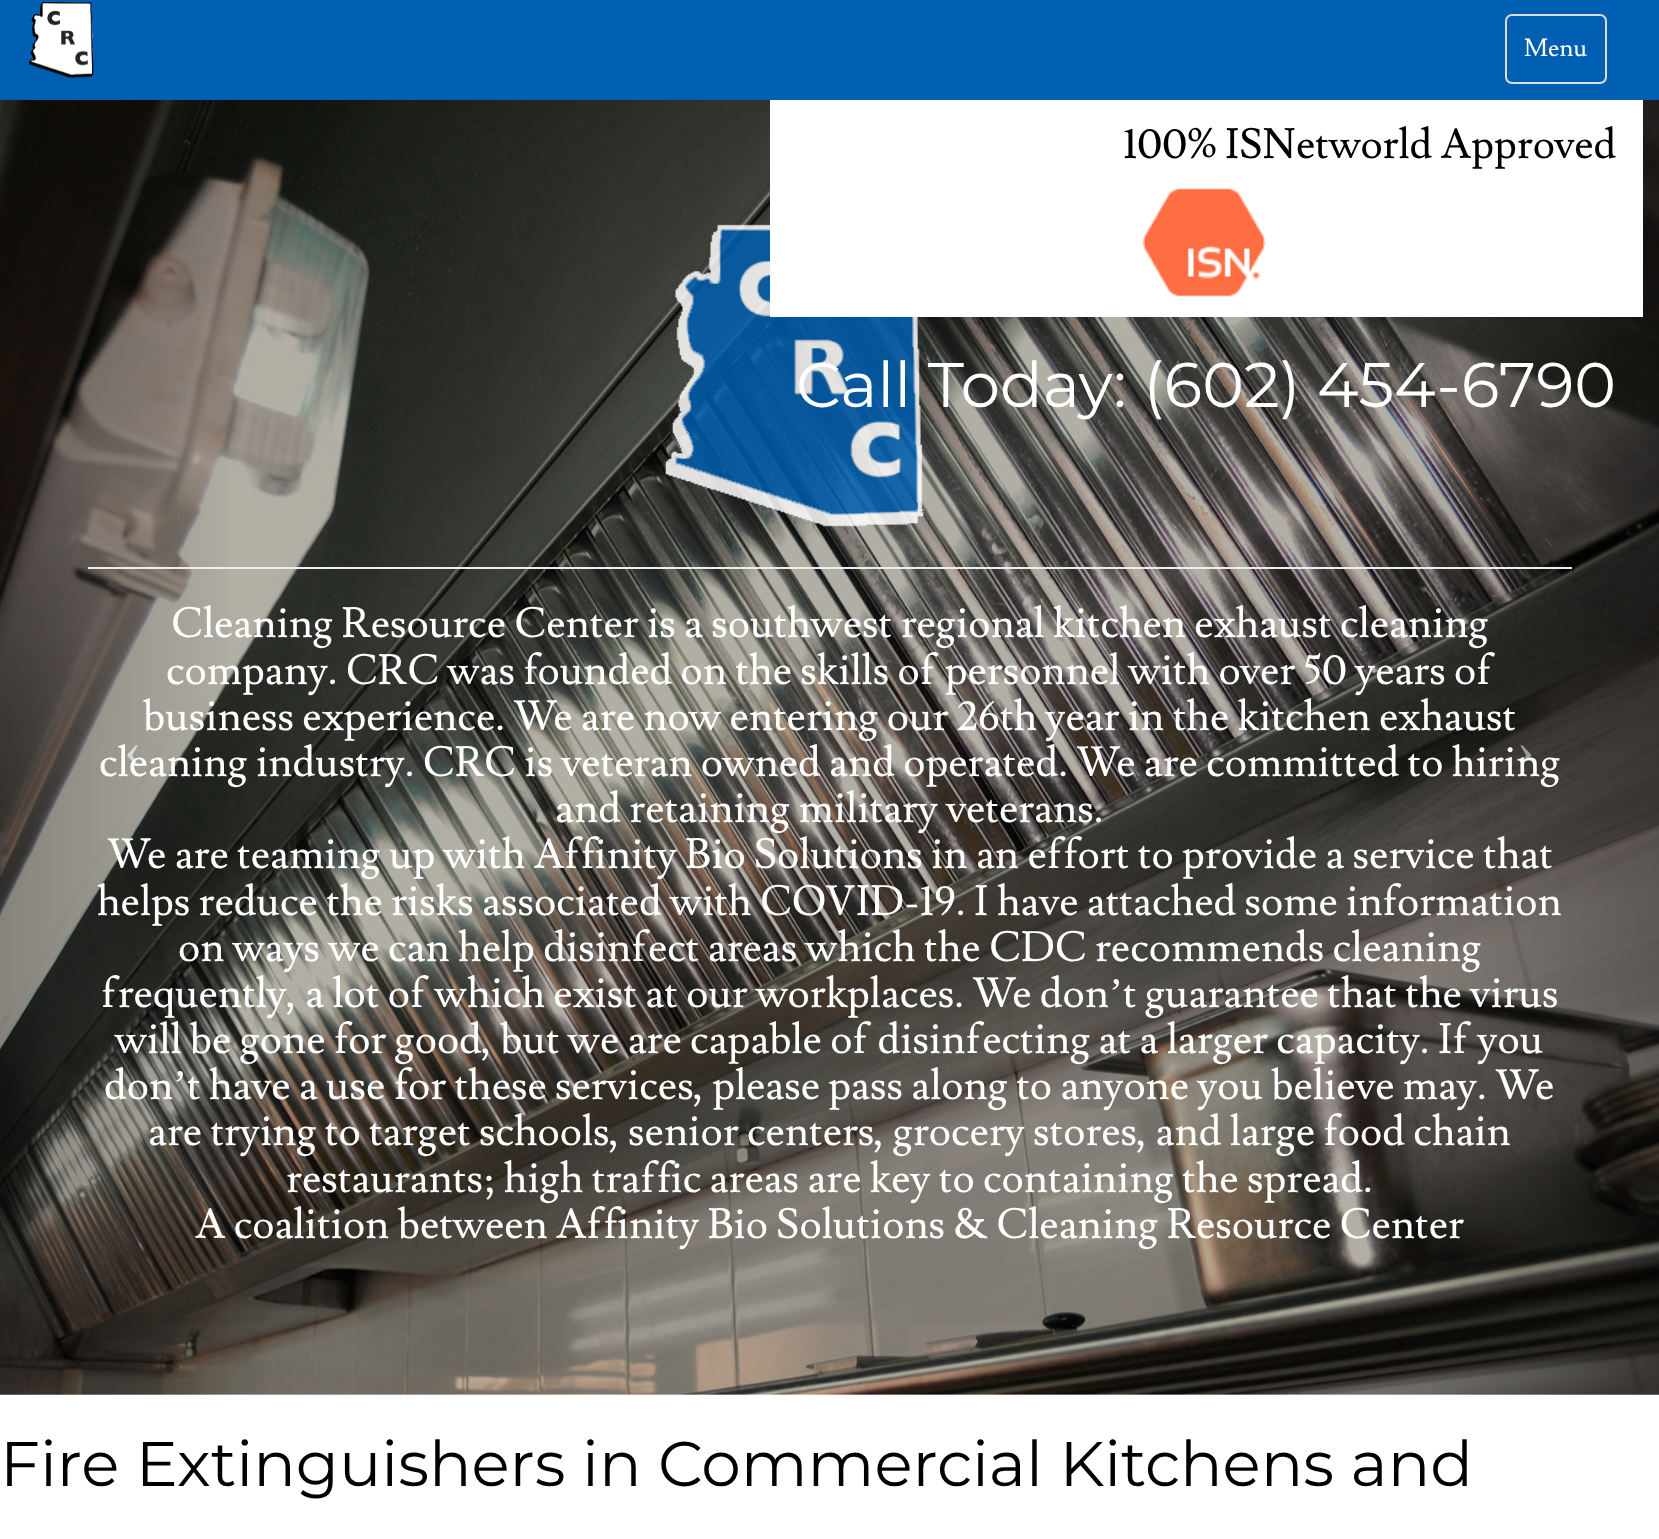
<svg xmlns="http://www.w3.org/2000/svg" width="1659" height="1539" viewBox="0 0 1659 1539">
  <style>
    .t1 { font: 24.5px Lusitana; fill: #fff; }
    .t2 { font: 42px Lusitana; fill: #000; }
    .t3 { font: 63px Montserrat; fill: #fff; }
    .t4 { font: 42px Lusitana; fill: #fff; }
    .t5 { font: 52px Liberation Serif; fill: #d9d8d2; }
    .t6 { font: 52px Liberation Serif; fill: #9d9c9a; }
    .t7 { font: 42px Liberation Serif; fill: #fff; }
    .t8 { font: 63px Montserrat; fill: #000; }
  </style>
  <defs>
    <linearGradient id="g1" gradientUnits="userSpaceOnUse" x1="1411" y1="741" x2="1659" y2="741"><stop offset="0" stop-color="#000" stop-opacity="0"/><stop offset="1" stop-color="#000" stop-opacity="0.25"/></linearGradient>
    <linearGradient id="g2" gradientUnits="userSpaceOnUse" x1="0" y1="741" x2="249" y2="741"><stop offset="0" stop-color="#000" stop-opacity="0.25"/><stop offset="1" stop-color="#000" stop-opacity="0"/></linearGradient>
  </defs>
  <rect width="100%" height="100%" fill="#fff"/>
  <rect x="0" y="0" width="1659" height="100" fill="#005fb3"/>
  <image x="29" y="2" width="65" height="76" href="images/1.png"/>
  <rect x="1506" y="15" width="100" height="68" rx="6" fill="none" stroke="#ddd" stroke-width="2"/>
  <text x="1524" y="56" class="t1">Menu</text>
  <image x="0" y="100" width="1659" height="1295" href="images/2.png"/>
  <image x="665" y="224" width="259" height="303" href="images/4.png"/>
  <rect x="1432" y="100" width="227" height="1295" fill="url(#g1)"/>
  <rect x="770" y="100" width="873" height="217" fill="#fff"/>
  <text x="1123" y="158" class="t2">100% ISNetworld Approved</text>
  <image x="1142" y="188" width="124" height="109" href="images/3.png"/>
  <text x="796" y="407" class="t3">Call Today: (602) 454-6790</text>
  <rect x="0" y="100" width="228" height="1295" fill="url(#g2)"/>
  <rect x="88" y="567" width="1484" height="2" fill="#eee"/>
  <text x="171" y="637" class="t4">Cleaning Resource Center is a southwest regional kitchen exhaust cleaning</text>
  <text x="166" y="684" class="t4">company. CRC was founded on the skills of personnel with over 50 years of</text>
  <text x="143" y="730" class="t4">business experience. We are now entering our 26th year in the kitchen exhaust</text>
  <text x="124" y="767" class="t5">‹</text>
  <text x="1517" y="767" class="t6">›</text>
  <text x="99" y="776" class="t4">cleaning industry. CRC is veteran owned and operated. We are committed to hiring</text>
  <text x="555" y="822" class="t4">and retaining military veterans.</text>
  <text x="107" y="868" class="t4">We are teaming up with Affinity Bio Solutions in an effort to provide a service that</text>
  <text x="97" y="915" class="t4">helps reduce the risks associated with COVID-19. I have attached some information</text>
  <text x="178" y="961" class="t4">on ways we can help disinfect areas which the CDC recommends cleaning</text>
  <text x="101" y="1007" class="t4">frequently, a lot of which exist at our workplaces. We don</text>
  <text x="1109" y="1007" class="t7">’</text>
  <text x="1123" y="1007" class="t4">t guarantee that the virus</text>
  <text x="115" y="1053" class="t4">will be gone for good, but we are capable of disinfecting at a larger capacity. If you</text>
  <text x="104" y="1099" class="t4">don</text>
  <text x="173" y="1099" class="t7">’</text>
  <text x="187" y="1099" class="t4">t have a use for these services, please pass along to anyone you believe may. We</text>
  <text x="148" y="1145" class="t4">are trying to target schools, senior centers, grocery stores, and large food chain</text>
  <text x="286" y="1192" class="t4">restaurants; high traffic areas are key to containing the spread.</text>
  <text x="195" y="1238" class="t4">A coalition between Affinity Bio Solutions &amp; Cleaning Resource Center</text>
  <text x="0" y="1486" class="t8">Fire Extinguishers in Commercial Kitchens and</text>
</svg>
